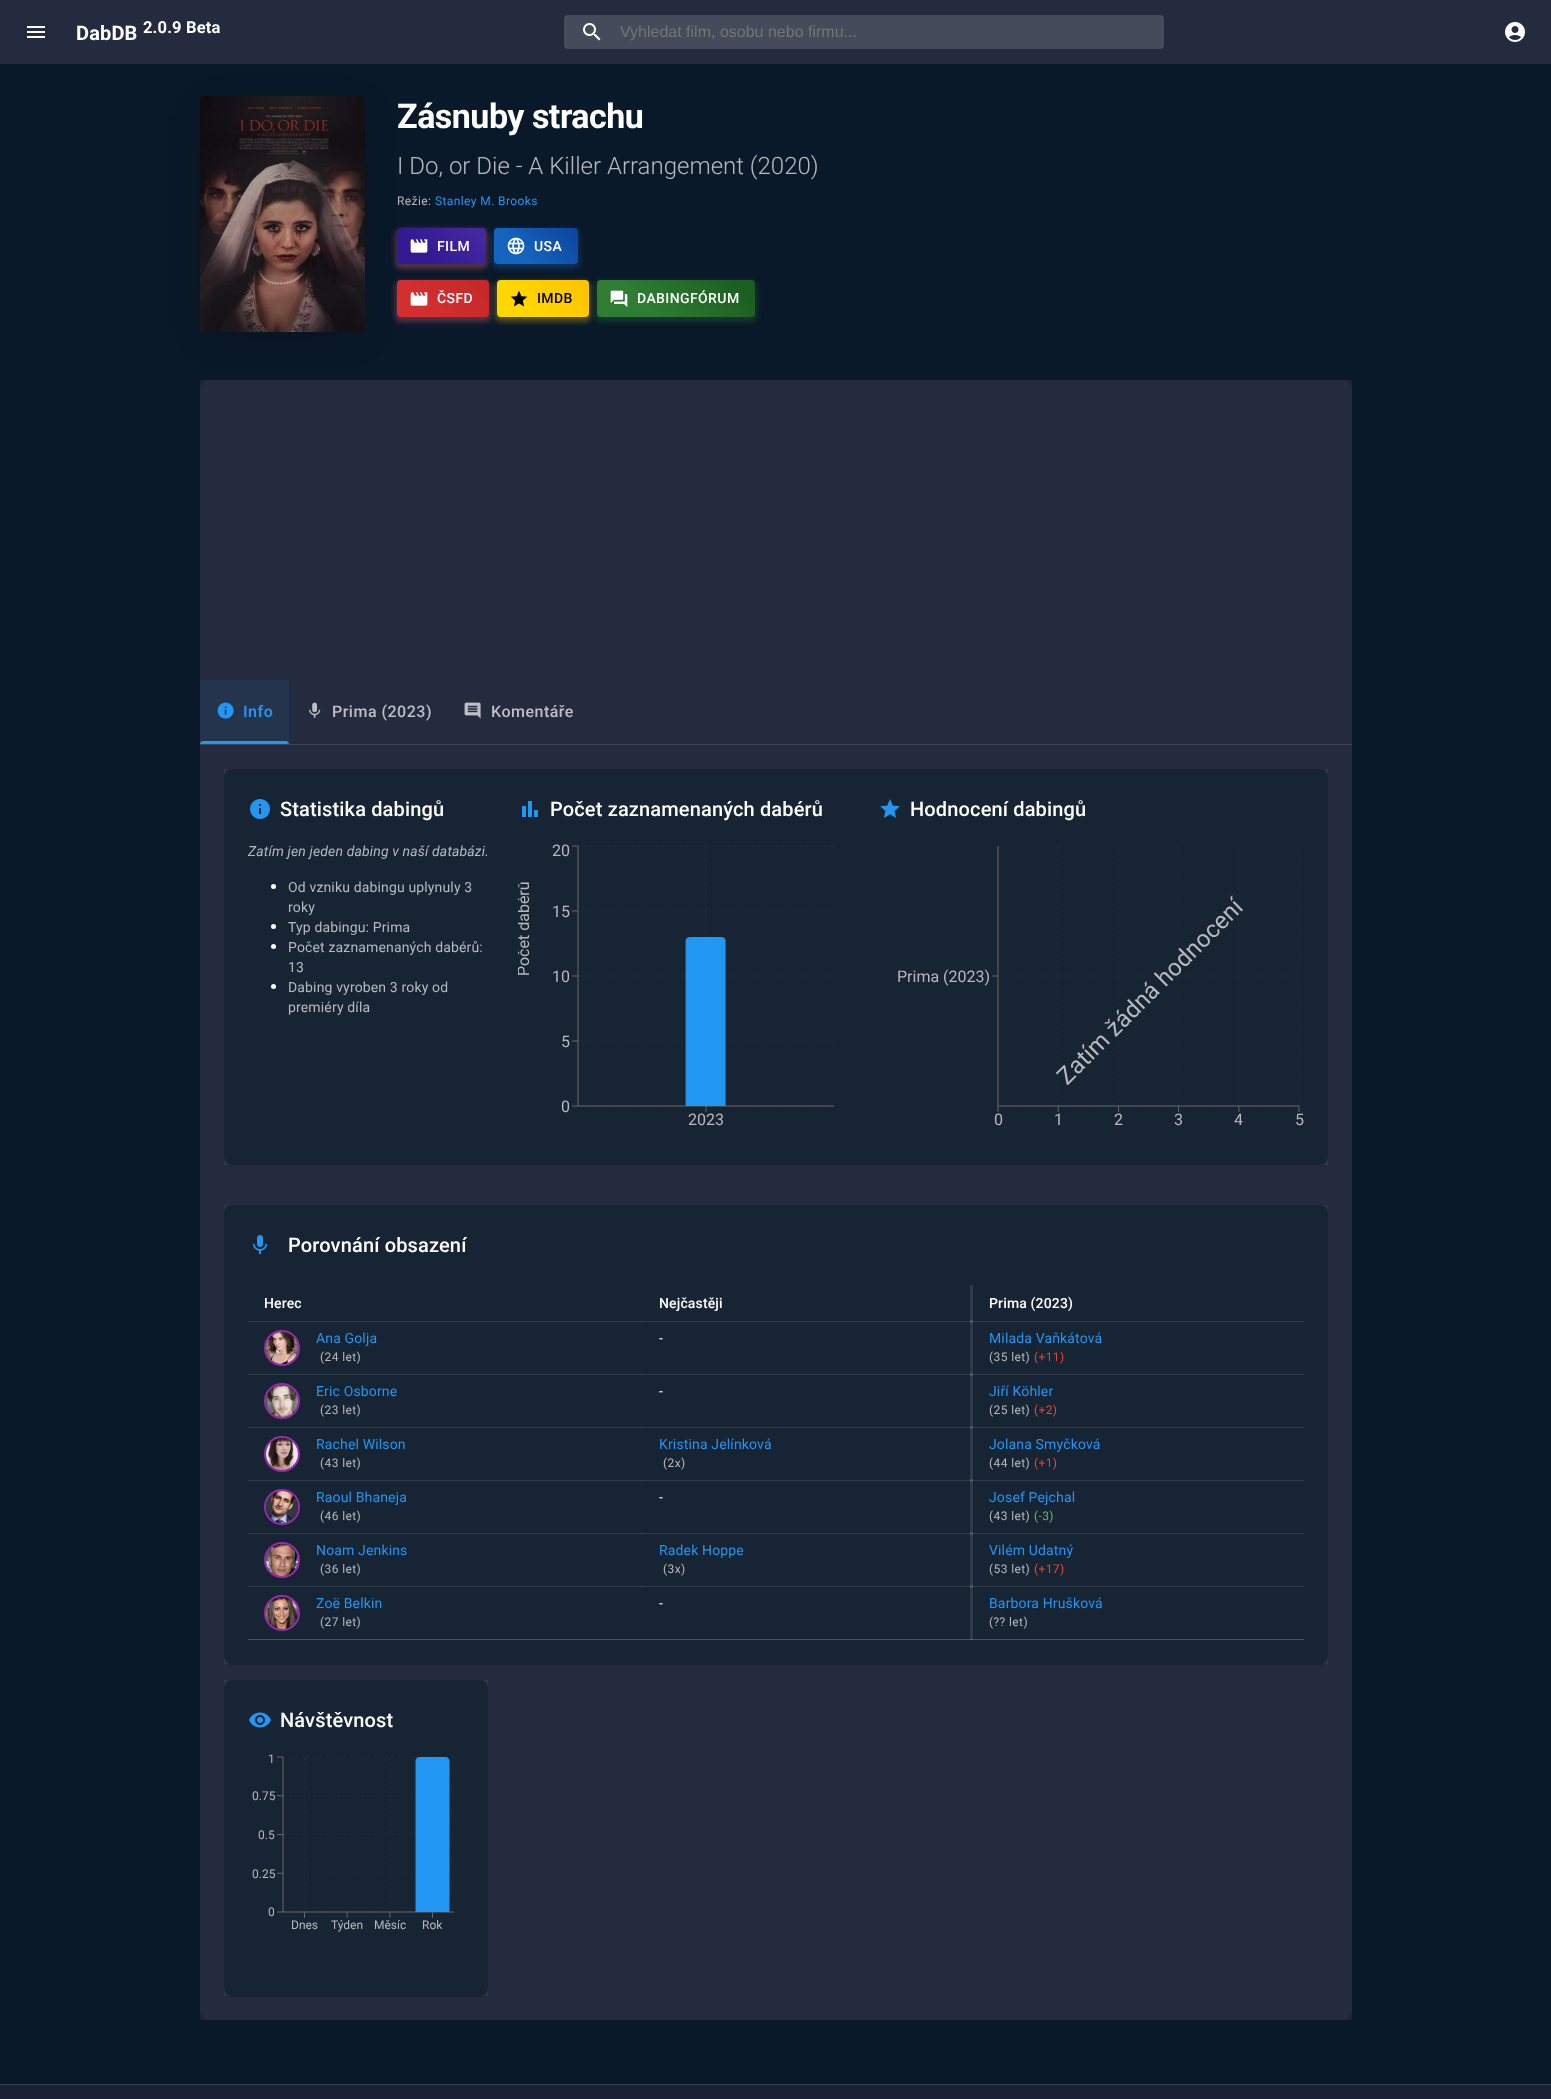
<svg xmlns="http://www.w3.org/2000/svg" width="1551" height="2099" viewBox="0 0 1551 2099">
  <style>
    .t1 { font: bold 20px Roboto; letter-spacing: 0.15px; fill: #fff; }
    .t2 { font: bold 16.5px Roboto; letter-spacing: 0.15px; fill: #fff; }
    .t3 { font: 16px Liberation Sans; fill: #757575; }
    .t4 { font: bold 34px Roboto; letter-spacing: -0.5px; fill: #fff; }
    .t5 { font: 300 24px Roboto; fill: #b6babf; }
    .t6 { font: 12px Roboto; letter-spacing: 0.4px; fill: #b6babf; }
    .t7 { font: 12px Roboto; letter-spacing: 0.4px; fill: #2196f3; }
    .t8 { font: 500 14px Roboto; letter-spacing: 0.4px; fill: #fff; }
    .t9 { font: 500 14px Roboto; letter-spacing: 0.4px; fill: #000; }
    .t10 { font: 600 16px Roboto; letter-spacing: 0.5px; fill: #2196f3; }
    .t11 { font: 500 16px Roboto; letter-spacing: 0.5px; fill: #bebfc5; }
    .t12 { font: 500 20px Roboto; letter-spacing: 0.15px; fill: #fff; }
    .t13 { font: italic 14px Roboto; letter-spacing: 0.15px; fill: #b6babf; }
    .t14 { font: 14px Roboto; letter-spacing: 0.15px; fill: #b6babf; }
    .t15 { font: 16px Roboto; fill: #b6babf; }
    .t16 { font: 24px Roboto; fill: #b6babf; }
    .t17 { font: 500 14px Roboto; letter-spacing: 0.15px; fill: #fff; }
    .t18 { font: 14px Roboto; letter-spacing: 0.15px; fill: #2196f3; }
    .t19 { font: 14px Roboto; letter-spacing: 0.15px; fill: #fff; }
    .t20 { font: 12px Roboto; letter-spacing: 0.4px; fill: #f44336; }
    .t21 { font: 12px Roboto; letter-spacing: 0.4px; fill: #66bb6a; }
    .t22 { font: 12px Roboto; fill: #b6babf; }
  </style>
  <defs>
    <linearGradient id="g1" gradientUnits="userSpaceOnUse" x1="410" y1="277" x2="473" y2="215"><stop offset="0.3" stop-color="#311b92"/><stop offset="0.9" stop-color="#4527a0"/></linearGradient>
    <linearGradient id="g2" gradientUnits="userSpaceOnUse" x1="506" y1="276" x2="566" y2="216"><stop offset="0.3" stop-color="#1565c0"/><stop offset="0.9" stop-color="#0d47a1"/></linearGradient>
    <linearGradient id="g3" gradientUnits="userSpaceOnUse" x1="411" y1="331" x2="475" y2="266"><stop offset="0.3" stop-color="#d32f2f"/><stop offset="0.9" stop-color="#c62828"/></linearGradient>
    <linearGradient id="g4" gradientUnits="userSpaceOnUse" x1="511" y1="331" x2="575" y2="266"><stop offset="0.3" stop-color="#ffd700"/><stop offset="0.9" stop-color="#ffc400"/></linearGradient>
    <linearGradient id="g5" gradientUnits="userSpaceOnUse" x1="627" y1="347" x2="725" y2="250"><stop offset="0.3" stop-color="#2e7d32"/><stop offset="0.9" stop-color="#1b5e20"/></linearGradient>
    <clipPath id="clip1"><rect x="518" y="841" width="336" height="300"/></clipPath>
  </defs>
  <rect width="100%" height="100%" fill="#0a1929"/>
  <rect x="200" y="380" width="1152" height="1640" rx="8" fill="#1a2035"/>
  <rect x="200" y="380" width="1152" height="1640" fill="#ffffff0d"/>
  <rect x="212" y="116" width="141" height="212" fill="#0000004d" filter="blur(20px)"/>
  <rect x="0" y="0" width="1551" height="64" fill="#252b3e"/>
  <image x="27" y="26" width="18" height="12" href="images/1.png"/>
  <text x="76" y="40" class="t1">DabDB</text>
  <text x="143" y="33" class="t2">2.0.9 Beta</text>
  <rect x="564" y="15" width="600" height="34" rx="4" fill="#464b5b"/>
  <image x="583" y="23" width="18" height="18" href="images/2.png"/>
  <text x="620" y="37" class="t3">Vyhledat film, osobu nebo firmu...</text>
  <image x="1505" y="22" width="20" height="20" href="images/3.png"/>
  <image x="200" y="96" width="165" height="236" href="images/4.png"/>
  <text x="397" y="128" class="t4">Zásnuby strachu</text>
  <text x="397" y="174" class="t5">I Do, or Die - A Killer Arrangement (2020)</text>
  <text x="397" y="205" class="t6">Režie:</text>
  <text x="435" y="205" class="t7">Stanley M. Brooks</text>
  <rect x="395" y="229" width="93" height="40" rx="6" fill="#ff69874d" filter="blur(2.5px)"/>
  <rect x="397" y="228" width="89" height="36" rx="4" fill="url(#g1)"/>
  <image x="410" y="239" width="18" height="14" href="images/5.png"/>
  <text x="437" y="251" class="t8">FILM</text>
  <rect x="492" y="229" width="88" height="40" rx="6" fill="#1565c04d" filter="blur(2.5px)"/>
  <rect x="494" y="228" width="84" height="36" rx="4" fill="url(#g2)"/>
  <image x="507" y="237" width="18" height="18" href="images/6.png"/>
  <text x="534" y="251" class="t8">USA</text>
  <rect x="395" y="281" width="96" height="41" rx="6" fill="#ff69874d" filter="blur(2.5px)"/>
  <rect x="397" y="280" width="92" height="37" rx="4" fill="url(#g3)"/>
  <image x="410" y="292" width="18" height="14" href="images/7.png"/>
  <text x="437" y="303" class="t8">ČSFD</text>
  <rect x="495" y="281" width="96" height="41" rx="6" fill="#ffd6004d" filter="blur(2.5px)"/>
  <rect x="497" y="280" width="92" height="37" rx="4" fill="url(#g4)"/>
  <image x="510" y="290" width="18" height="17" href="images/8.png"/>
  <text x="537" y="303" class="t9">IMDB</text>
  <rect x="595" y="281" width="162" height="41" rx="6" fill="#2e7d324d" filter="blur(2.5px)"/>
  <rect x="597" y="280" width="158" height="37" rx="4" fill="url(#g5)"/>
  <image x="610" y="290" width="18" height="18" href="images/9.png"/>
  <text x="637" y="303" class="t8">DABINGFÓRUM</text>
  <rect x="200" y="744" width="1152" height="1" fill="#404556"/>
  <rect x="200" y="680" width="89" height="64" fill="#25344d"/>
  <image x="217" y="702" width="17" height="17" href="images/10.png"/>
  <text x="243" y="717" class="t10">Info</text>
  <image x="309" y="702" width="12" height="16" href="images/11.png"/>
  <text x="332" y="717" class="t11">Prima (2023)</text>
  <image x="464" y="702" width="17" height="17" href="images/12.png"/>
  <text x="491" y="717" class="t11">Komentáře</text>
  <path d="M203 741H286C287.5 741 289 742.5 289 744H200C200 742.5 201.5 741 203 741Z" fill="#2196f3"/>
  <rect x="224" y="769" width="1104" height="396" rx="8" fill="#0a1929"/>
  <rect x="224" y="769" width="1104" height="396" fill="#ffffff0d"/>
  <image x="250" y="799" width="20" height="20" href="images/13.png"/>
  <text x="280" y="816" class="t12">Statistika dabingů</text>
  <text x="248" y="856" class="t13">Zatím jen jeden dabing v naší databázi.</text>
  <circle cx="273.5" cy="886.5" r="2.5" fill="#fff"/>
  <text x="288" y="892" class="t14">Od vzniku dabingu uplynuly 3</text>
  <text x="288" y="912" class="t14">roky</text>
  <circle cx="273.5" cy="926.5" r="2.5" fill="#fff"/>
  <text x="288" y="932" class="t14">Typ dabingu: Prima</text>
  <circle cx="273.5" cy="946.5" r="2.5" fill="#fff"/>
  <text x="288" y="952" class="t14">Počet zaznamenaných dabérů:</text>
  <text x="288" y="972" class="t14">13</text>
  <circle cx="273.5" cy="986.5" r="2.5" fill="#fff"/>
  <text x="288" y="992" class="t14">Dabing vyroben 3 roky od</text>
  <text x="288" y="1012" class="t14">premiéry díla</text>
  <image x="522" y="801" width="16" height="16" href="images/14.png"/>
  <text x="550" y="816" class="t12">Počet zaznamenaných dabérů</text>
  <g clip-path="url(#clip1)">
    <text x="529" y="976" transform="rotate(-90 529 976)" class="t15">Počet dabérů</text>
  </g>
  <text x="552" y="856" class="t15">20</text>
  <image x="572" y="845" width="262" height="267" href="images/15.png"/>
  <text x="552" y="917" class="t15">15</text>
  <text x="552" y="982" class="t15">10</text>
  <text x="561" y="1047" class="t15">5</text>
  <text x="561" y="1112" class="t15">0</text>
  <text x="688" y="1125" class="t15">2023</text>
  <image x="880" y="799" width="20" height="19" href="images/16.png"/>
  <text x="910" y="816" class="t12">Hodnocení dabingů</text>
  <image x="992" y="846" width="308" height="266" href="images/17.png"/>
  <text x="1067" y="1086" transform="rotate(-45 1067 1086)" class="t16">Zatím žádná hodnocení</text>
  <text x="897" y="982" class="t15">Prima (2023)</text>
  <text x="994" y="1125" class="t15">0</text>
  <text x="1054" y="1125" class="t15">1</text>
  <text x="1114" y="1125" class="t15">2</text>
  <text x="1174" y="1125" class="t15">3</text>
  <text x="1234" y="1125" class="t15">4</text>
  <text x="1295" y="1125" class="t15">5</text>
  <rect x="225" y="1208" width="1102" height="457" rx="7" fill="#00000033" filter="blur(0.5px)"/>
  <rect x="224" y="1205" width="1104" height="459" rx="8" fill="#0a1929"/>
  <rect x="224" y="1205" width="1104" height="459" fill="#ffffff0d"/>
  <image x="253" y="1235" width="14" height="19" href="images/18.png"/>
  <text x="288" y="1252" class="t12">Porovnání obsazení</text>
  <rect x="971" y="1321" width="333" height="1" fill="#2e3a48"/>
  <rect x="642" y="1321" width="330" height="1" fill="#ffffff1a"/>
  <rect x="248" y="1321" width="395" height="1" fill="#ffffff1a"/>
  <text x="264" y="1308" class="t17">Herec</text>
  <rect x="971" y="1374" width="333" height="1" fill="#2e3a48"/>
  <rect x="642" y="1374" width="330" height="1" fill="#ffffff1a"/>
  <rect x="971" y="1427" width="333" height="1" fill="#2e3a48"/>
  <rect x="642" y="1427" width="330" height="1" fill="#ffffff1a"/>
  <rect x="971" y="1480" width="333" height="1" fill="#2e3a48"/>
  <rect x="642" y="1480" width="330" height="1" fill="#ffffff1a"/>
  <rect x="971" y="1533" width="333" height="1" fill="#2e3a48"/>
  <rect x="642" y="1533" width="330" height="1" fill="#ffffff1a"/>
  <rect x="971" y="1586" width="333" height="1" fill="#2e3a48"/>
  <rect x="642" y="1586" width="330" height="1" fill="#ffffff1a"/>
  <rect x="248" y="1639" width="1056" height="1" fill="#515151"/>
  <rect x="970" y="1585" width="3" height="55" fill="#ffffff1a"/>
  <rect x="970" y="1532" width="3" height="56" fill="#ffffff1a"/>
  <rect x="970" y="1479" width="3" height="56" fill="#ffffff1a"/>
  <rect x="970" y="1426" width="3" height="56" fill="#ffffff1a"/>
  <rect x="970" y="1373" width="3" height="56" fill="#ffffff1a"/>
  <rect x="970" y="1320" width="3" height="56" fill="#ffffff1a"/>
  <rect x="970" y="1285" width="3" height="38" fill="#ffffff1a"/>
  <text x="659" y="1308" class="t17">Nejčastěji</text>
  <text x="989" y="1308" class="t17">Prima (2023)</text>
  <rect x="248" y="1374" width="395" height="1" fill="#ffffff1a"/>
  <circle cx="282" cy="1348" r="17" fill="none" stroke="#9c27b0" stroke-width="2"/>
  <image x="266" y="1332" width="32" height="32" href="images/19.png"/>
  <text x="316" y="1343" class="t18">Ana Golja</text>
  <text x="320" y="1361" class="t6">(24 let)</text>
  <text x="659" y="1343" class="t19">-</text>
  <text x="989" y="1343" class="t18">Milada Vaňkátová</text>
  <text x="989" y="1361" class="t6">(35 let)</text>
  <text x="1034" y="1361" class="t20">(+11)</text>
  <rect x="248" y="1427" width="395" height="1" fill="#ffffff1a"/>
  <circle cx="282" cy="1401" r="17" fill="none" stroke="#9c27b0" stroke-width="2"/>
  <image x="266" y="1385" width="32" height="32" href="images/20.png"/>
  <text x="316" y="1396" class="t18">Eric Osborne</text>
  <text x="320" y="1414" class="t6">(23 let)</text>
  <text x="659" y="1396" class="t19">-</text>
  <text x="989" y="1396" class="t18">Jiří Köhler</text>
  <text x="989" y="1414" class="t6">(25 let)</text>
  <text x="1034" y="1414" class="t20">(+2)</text>
  <rect x="248" y="1480" width="395" height="1" fill="#ffffff1a"/>
  <circle cx="282" cy="1454" r="17" fill="none" stroke="#9c27b0" stroke-width="2"/>
  <image x="266" y="1438" width="32" height="32" href="images/21.png"/>
  <text x="316" y="1449" class="t18">Rachel Wilson</text>
  <text x="320" y="1467" class="t6">(43 let)</text>
  <text x="659" y="1449" class="t18">Kristina Jelínková</text>
  <text x="663" y="1467" class="t6">(2x)</text>
  <text x="989" y="1449" class="t18">Jolana Smyčková</text>
  <text x="989" y="1467" class="t6">(44 let)</text>
  <text x="1034" y="1467" class="t20">(+1)</text>
  <rect x="248" y="1533" width="395" height="1" fill="#ffffff1a"/>
  <circle cx="282" cy="1507" r="17" fill="none" stroke="#9c27b0" stroke-width="2"/>
  <image x="266" y="1491" width="32" height="32" href="images/22.png"/>
  <text x="316" y="1502" class="t18">Raoul Bhaneja</text>
  <text x="320" y="1520" class="t6">(46 let)</text>
  <text x="659" y="1502" class="t19">-</text>
  <text x="989" y="1502" class="t18">Josef Pejchal</text>
  <text x="989" y="1520" class="t6">(43 let)</text>
  <text x="1034" y="1520" class="t21">(-3)</text>
  <rect x="248" y="1586" width="395" height="1" fill="#ffffff1a"/>
  <circle cx="282" cy="1560" r="17" fill="none" stroke="#9c27b0" stroke-width="2"/>
  <image x="266" y="1544" width="32" height="32" href="images/23.png"/>
  <text x="316" y="1555" class="t18">Noam Jenkins</text>
  <text x="320" y="1573" class="t6">(36 let)</text>
  <text x="659" y="1555" class="t18">Radek Hoppe</text>
  <text x="663" y="1573" class="t6">(3x)</text>
  <text x="989" y="1555" class="t18">Vilém Udatný</text>
  <text x="989" y="1573" class="t6">(53 let)</text>
  <text x="1034" y="1573" class="t20">(+17)</text>
  <circle cx="282" cy="1613" r="17" fill="none" stroke="#9c27b0" stroke-width="2"/>
  <image x="266" y="1597" width="32" height="32" href="images/24.png"/>
  <text x="316" y="1608" class="t18">Zoë Belkin</text>
  <text x="320" y="1626" class="t6">(27 let)</text>
  <text x="659" y="1608" class="t19">-</text>
  <text x="989" y="1608" class="t18">Barbora Hrušková</text>
  <text x="989" y="1626" class="t6">(?? let)</text>
  <rect x="225" y="1683" width="262" height="314" rx="7" fill="#00000033" filter="blur(0.5px)"/>
  <rect x="224" y="1680" width="264" height="316" rx="8" fill="#0a1929"/>
  <rect x="224" y="1680" width="264" height="316" fill="#ffffff0d"/>
  <image x="249" y="1712" width="22" height="16" href="images/25.png"/>
  <text x="280" y="1727" class="t12">Návštěvnost</text>
  <text x="268" y="1763" class="t22">1</text>
  <image x="277" y="1756" width="177" height="162" href="images/26.png"/>
  <text x="252" y="1800" class="t22">0.75</text>
  <text x="258" y="1839" class="t22">0.5</text>
  <text x="252" y="1878" class="t22">0.25</text>
  <text x="268" y="1916" class="t22">0</text>
  <text x="291" y="1929" class="t22">Dnes</text>
  <text x="331" y="1929" class="t22">Týden</text>
  <text x="374" y="1929" class="t22">Měsíc</text>
  <text x="422" y="1929" class="t22">Rok</text>
  <rect x="0" y="2085" width="1551" height="14" fill="#1a2035"/>
  <rect x="0" y="2084" width="1551" height="1" fill="#353b4d"/>
</svg>
